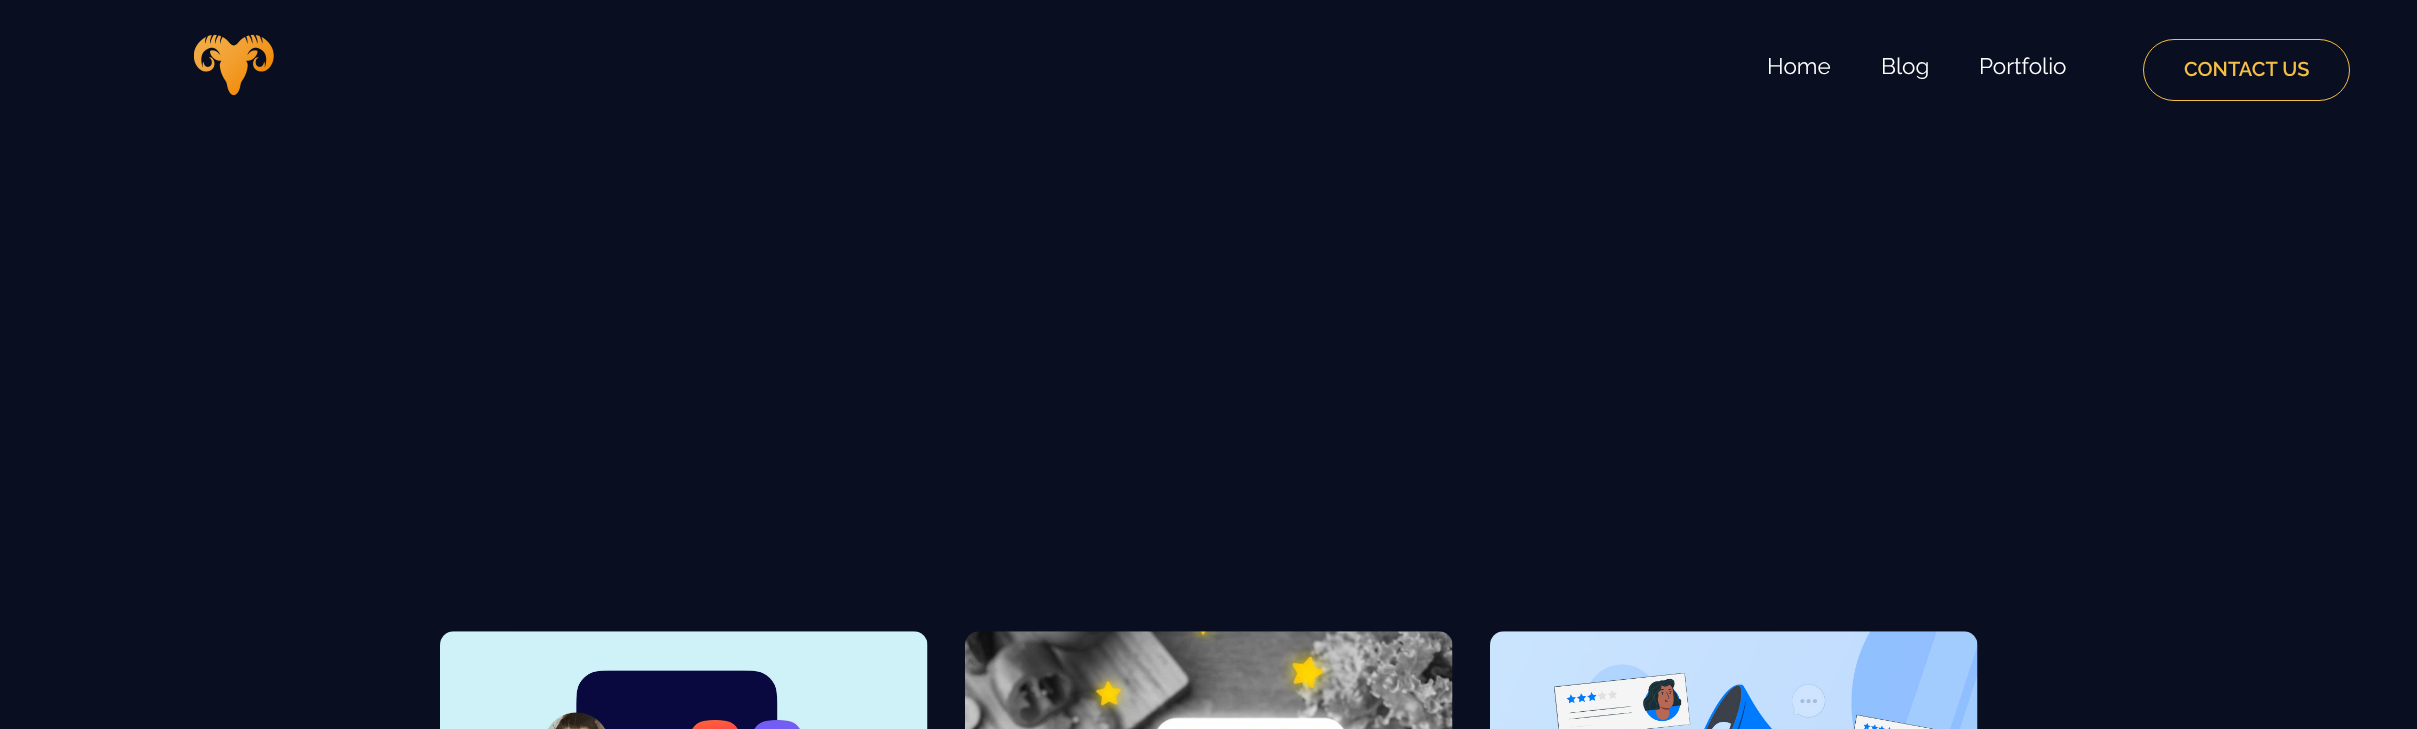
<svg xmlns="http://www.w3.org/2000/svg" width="2417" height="729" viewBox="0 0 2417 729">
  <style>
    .t1 { font: 22.5px Raleway; fill: #fff; }
    .t2 { font: 600 20px Raleway; fill: #f4bf44; }
  </style>
  <rect width="100%" height="100%" fill="#090f20"/>
  <image x="194" y="34" width="80" height="62" href="images/1.png"/>
  <text x="1767" y="74" class="t1">Home</text>
  <text x="1881" y="74" class="t1">Blog</text>
  <text x="1979" y="74" class="t1">Portfolio</text>
  <rect x="2143.5" y="39.5" width="206" height="61" rx="30.5" fill="none" stroke="#f4bf44"/>
  <text x="2184" y="76" class="t2">CONTACT US</text>
  <image x="440" y="631" width="488" height="98" href="images/2.png"/>
  <image x="965" y="631" width="488" height="98" href="images/3.png"/>
  <image x="1490" y="631" width="488" height="98" href="images/4.png"/>
</svg>
